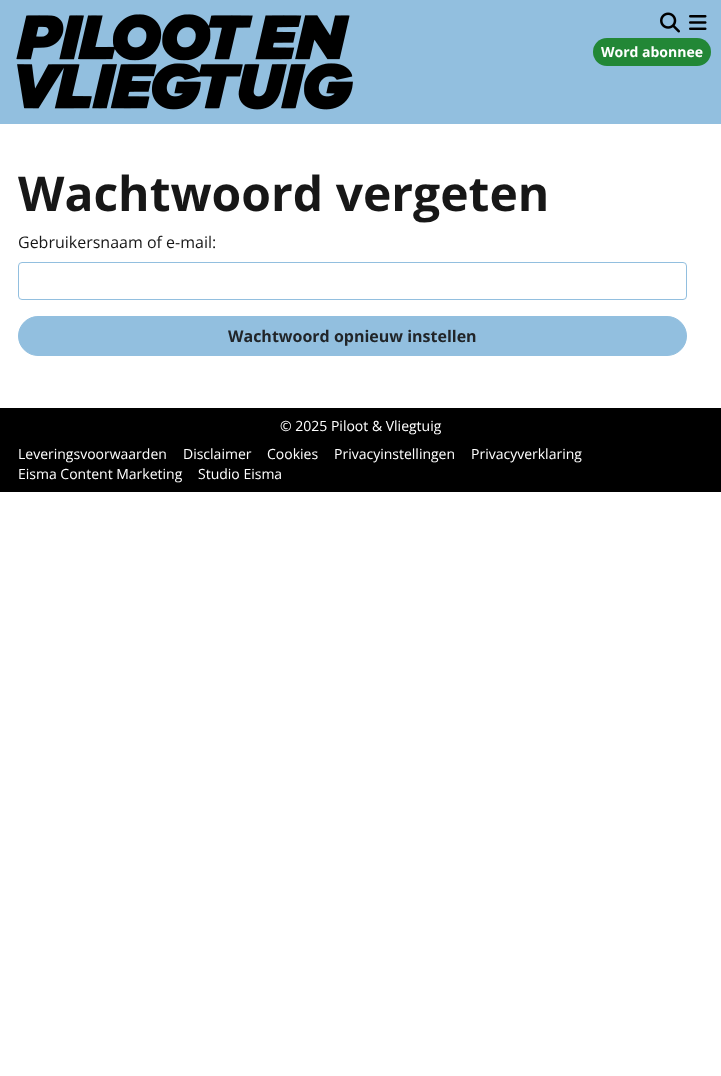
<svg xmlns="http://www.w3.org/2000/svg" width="721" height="1076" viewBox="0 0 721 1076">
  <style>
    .t1 { font: bold 14px Open Sans; fill: #fff; }
    .t2 { font: bold 48px Open Sans; fill: #171717; }
    .t3 { font: 16px Open Sans; fill: #171717; }
    .t4 { font: bold 16px Open Sans; fill: #212529; }
    .t5 { font: 14px Open Sans; fill: #fff; }
  </style>
  <rect width="100%" height="100%" fill="#fff"/>
  <rect x="0" y="0" width="721" height="124" fill="#92bfdf"/>
  <image x="16" y="14" width="337" height="96" href="images/1.png"/>
  <image x="660" y="12" width="20" height="21" href="images/2.png"/>
  <image x="689" y="15" width="18" height="15" href="images/3.png"/>
  <rect x="593" y="38" width="118" height="28" rx="14" fill="#228736"/>
  <text x="601" y="57" class="t1">Word abonnee</text>
  <text x="18" y="211" class="t2">Wachtwoord vergeten</text>
  <text x="18" y="248" class="t3">Gebruikersnaam of e-mail:</text>
  <rect x="18.5" y="262.5" width="668" height="37" rx="3.5" fill="none" stroke="#92bfdf"/>
  <rect x="18.5" y="316.5" width="668" height="39" rx="19.5" fill="#92bfdf" stroke="#92bfdf"/>
  <text x="228" y="342" class="t4">Wachtwoord opnieuw instellen</text>
  <rect x="0" y="408" width="721" height="84" fill="#000"/>
  <text x="280" y="431" class="t5">© 2025 Piloot &amp; Vliegtuig</text>
  <text x="18" y="459" class="t5">Leveringsvoorwaarden</text>
  <text x="183" y="459" class="t5">Disclaimer</text>
  <text x="267" y="459" class="t5">Cookies</text>
  <text x="334" y="459" class="t5">Privacyinstellingen</text>
  <text x="471" y="459" class="t5">Privacyverklaring</text>
  <text x="18" y="479" class="t5">Eisma Content Marketing</text>
  <text x="198" y="479" class="t5">Studio Eisma</text>
</svg>
